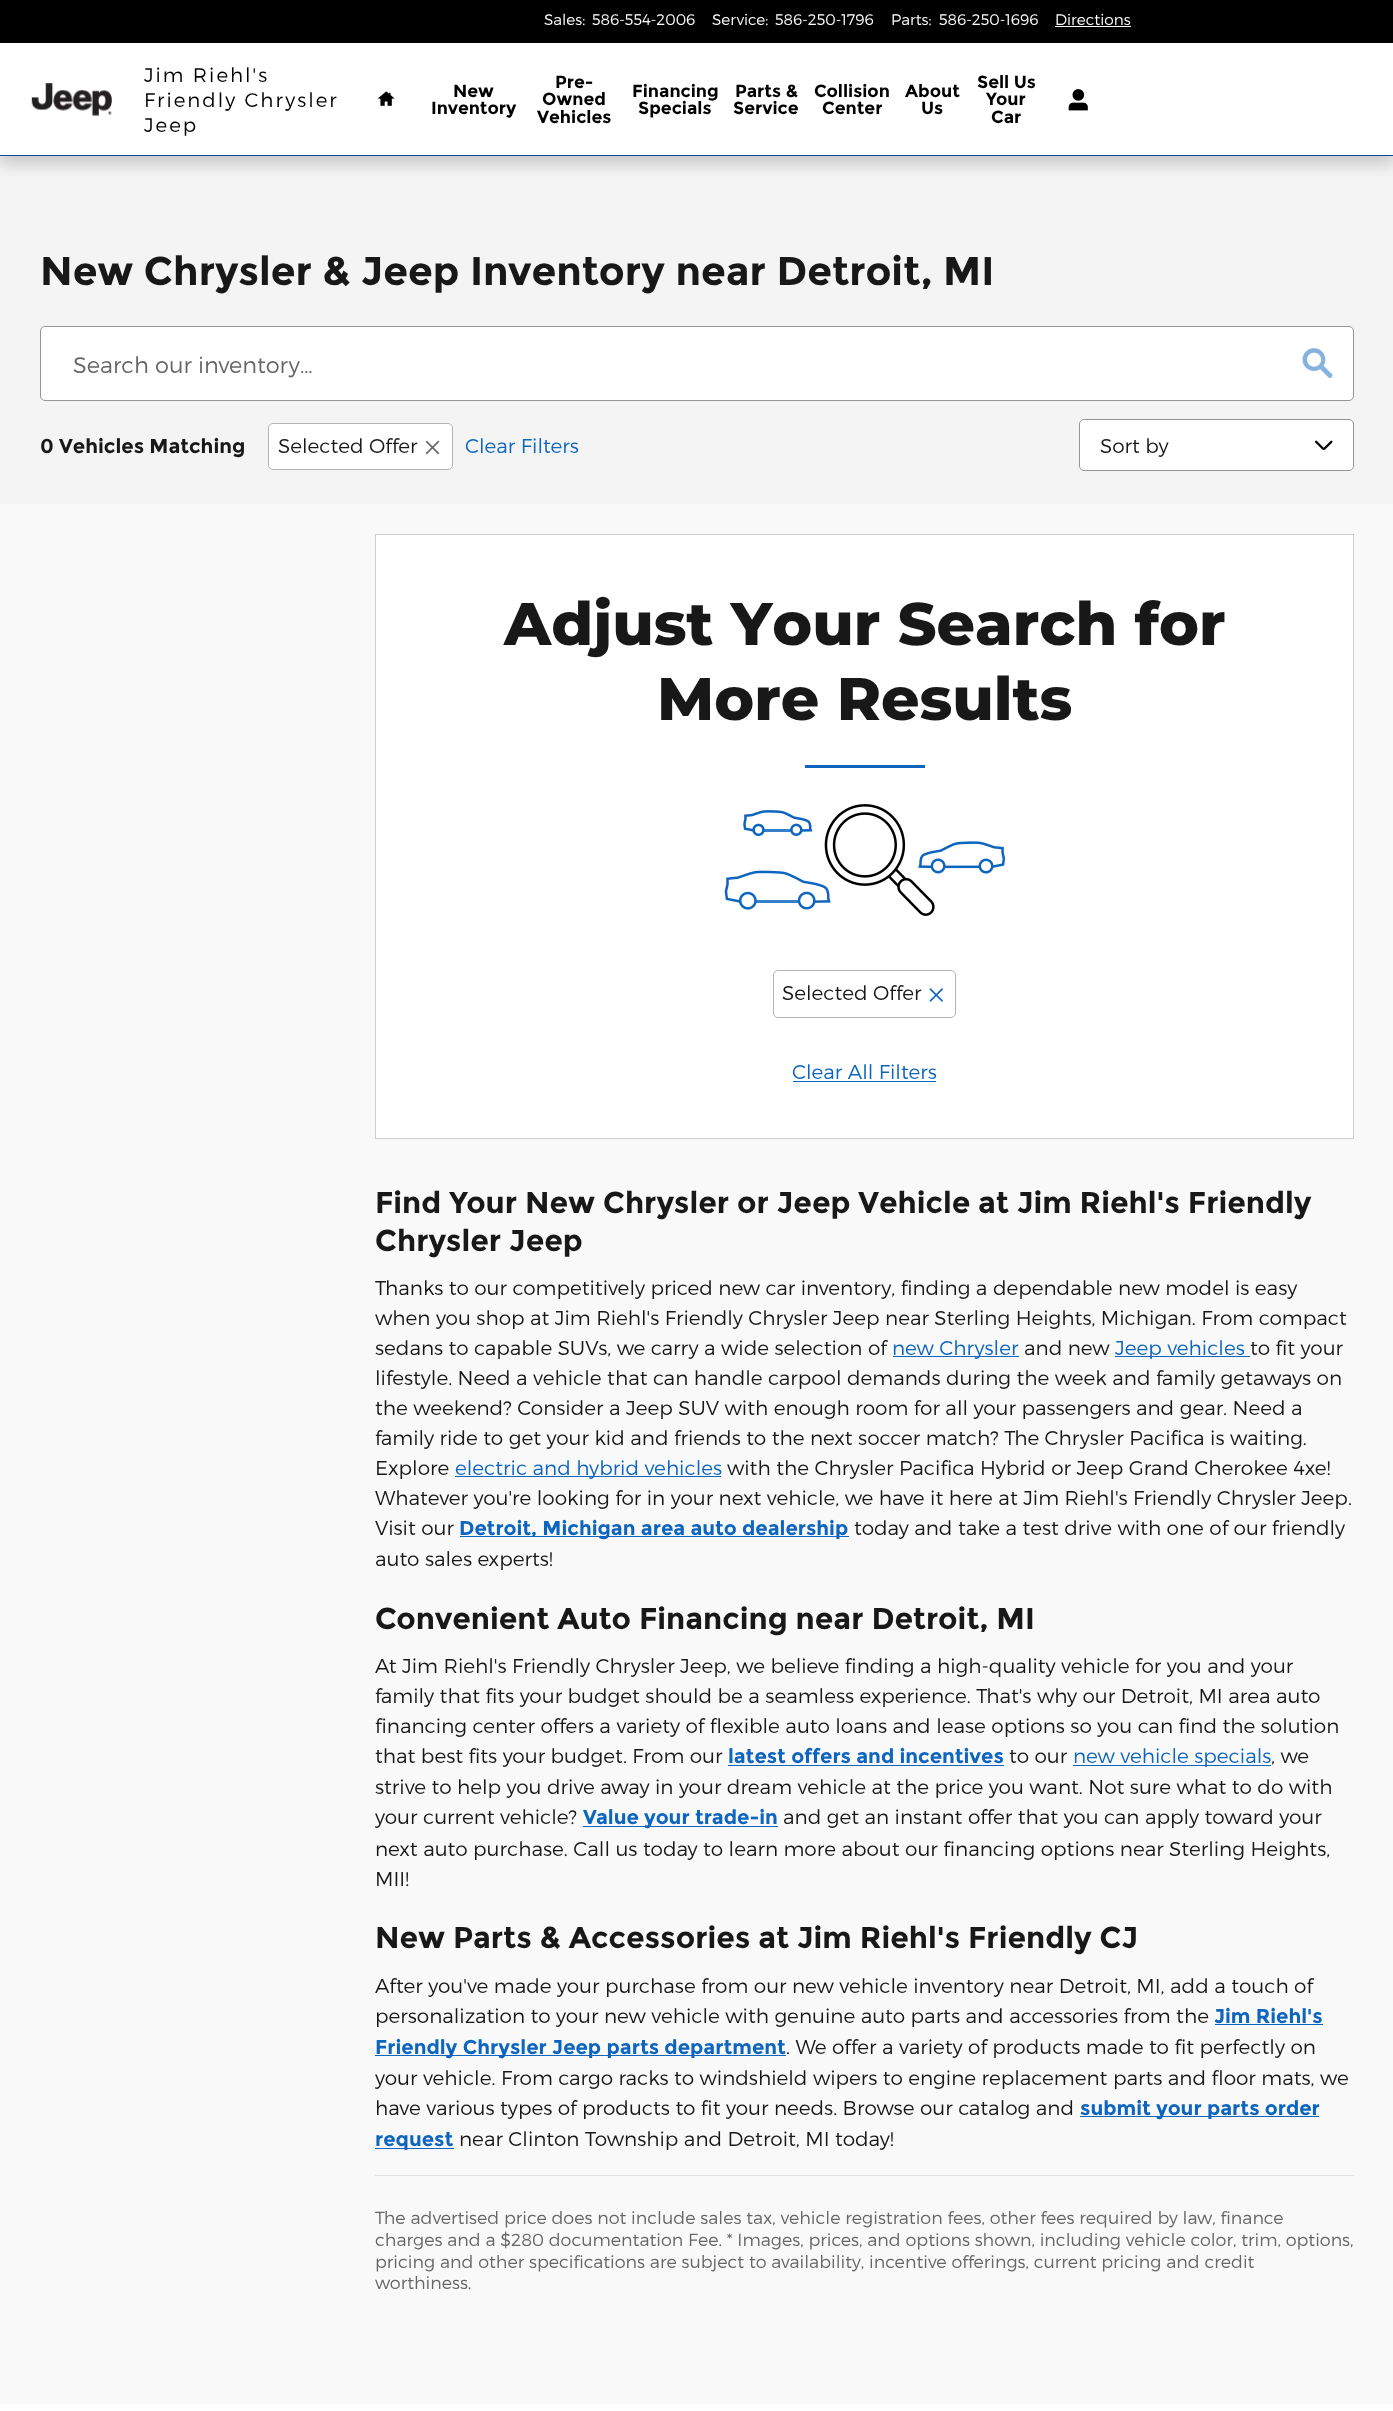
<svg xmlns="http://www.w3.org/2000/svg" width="1393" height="2411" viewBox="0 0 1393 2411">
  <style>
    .t1 { font: 300 15.25px Montserrat; fill: #fff; }
    .t2 { font: 300 19.75px Montserrat; letter-spacing: 2px; fill: #000; }
    .t3 { font: bold 17.5px Montserrat; fill: #000; }
    .t4 { font: bold 40px Montserrat; fill: #181818; }
    .t5 { font: 300 22.5px Montserrat; fill: #666; }
    .t6 { font: bold 20px Montserrat; fill: #181818; }
    .t7 { font: 300 20px Montserrat; fill: #181818; }
    .t8 { font: 300 20px Montserrat; fill: #0d65bf; }
    .t9 { font: 800 60px Montserrat; fill: #181818; }
    .t10 { font: bold 30px Montserrat; fill: #181818; }
    .t11 { font: bold 20px Montserrat; fill: #0d65bf; }
    .t12 { font: 300 17.5px Montserrat; fill: #666; }
  </style>
  <rect width="100%" height="100%" fill="#f9f9fa"/>
  <rect x="0" y="156" width="1393" height="348" fill="#f4f4f4"/>
  <rect x="0" y="8" width="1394" height="156" fill="#0000002e" filter="blur(7.5px)"/>
  <rect x="0" y="43" width="1393" height="112" fill="#fff"/>
  <rect x="0" y="155" width="1393" height="1" fill="#0a468d"/>
  <rect x="0" y="0" width="1393" height="43" fill="#000"/>
  <text x="544" y="25" class="t1">Sales:</text>
  <text x="592" y="25" class="t1">586-554-2006</text>
  <text x="712" y="25" class="t1">Service:</text>
  <text x="775" y="25" class="t1">586-250-1796</text>
  <text x="891" y="25" class="t1">Parts:</text>
  <text x="939" y="25" class="t1">586-250-1696</text>
  <text x="1055" y="25" class="t1">Directions</text>
  <rect x="1055" y="26" width="76" height="1" fill="#fff"/>
  <image x="31" y="83" width="81" height="34" href="images/1.png"/>
  <text x="144" y="82" class="t2">Jim Riehl's</text>
  <text x="144" y="107" class="t2">Friendly Chrysler</text>
  <text x="144" y="132" class="t2">Jeep</text>
  <image x="377" y="91" width="18" height="15" href="images/2.png"/>
  <text x="453" y="97" class="t3">New</text>
  <text x="431" y="114" class="t3">Inventory</text>
  <text x="555" y="88" class="t3">Pre-</text>
  <text x="542" y="105" class="t3">Owned</text>
  <text x="537" y="123" class="t3">Vehicles</text>
  <text x="632" y="97" class="t3">Financing</text>
  <text x="638" y="114" class="t3">Specials</text>
  <text x="735" y="97" class="t3">Parts &amp;</text>
  <text x="733" y="114" class="t3">Service</text>
  <text x="814" y="97" class="t3">Collision</text>
  <text x="822" y="114" class="t3">Center</text>
  <text x="905" y="97" class="t3">About</text>
  <text x="921" y="114" class="t3">Us</text>
  <text x="977" y="88" class="t3">Sell Us</text>
  <text x="986" y="105" class="t3">Your</text>
  <text x="991" y="123" class="t3">Car</text>
  <image x="1068" y="89" width="20" height="22" href="images/3.png"/>
  <text x="40" y="285" class="t4">New Chrysler &amp; Jeep Inventory near Detroit, MI</text>
  <rect x="40.5" y="326.5" width="1313" height="74" rx="4.5" fill="#fff" stroke="#949599"/>
  <text x="73" y="373" class="t5">Search our inventory…</text>
  <image x="1302" y="348" width="31" height="30" href="images/4.png"/>
  <text x="40" y="453" class="t6">0 Vehicles Matching</text>
  <rect x="268.5" y="423.5" width="184" height="46" rx="4.5" fill="#fff" stroke="#b3b4b7"/>
  <text x="278" y="453" class="t7">Selected Offer</text>
  <image x="425" y="440" width="15" height="15" href="images/5.png"/>
  <text x="465" y="453" class="t8">Clear Filters</text>
  <rect x="1079" y="419" width="275" height="52" rx="5" fill="#fff"/>
  <image x="1315" y="440" width="18" height="10" href="images/6.png"/>
  <rect x="1079.5" y="419.5" width="274" height="51" rx="4.5" fill="none" stroke="#949599"/>
  <text x="1100" y="453" class="t7">Sort by</text>
  <rect x="375.5" y="534.5" width="978" height="604" fill="#fff" stroke="#cecfd1"/>
  <text x="504" y="645" class="t9">Adjust Your Search for</text>
  <text x="657" y="720" class="t9">More Results</text>
  <rect x="805" y="765" width="120" height="3" fill="#0d65bf"/>
  <image x="724" y="804" width="282" height="112" href="images/7.png"/>
  <rect x="773.5" y="970.5" width="182" height="47" rx="4.5" fill="none" stroke="#b3b4b7"/>
  <text x="782" y="1000" class="t7">Selected Offer</text>
  <image x="929" y="988" width="14" height="14" href="images/8.png"/>
  <text x="792" y="1079" class="t8">Clear All Filters</text>
  <rect x="793" y="1081" width="143" height="1" fill="#0d65bf"/>
  <text x="375" y="1213" class="t10">Find Your New Chrysler or Jeep Vehicle at Jim Riehl's Friendly</text>
  <text x="375" y="1251" class="t10">Chrysler Jeep</text>
  <text x="375" y="1295" class="t7">Thanks to our competitively priced new car inventory, finding a dependable new model is easy</text>
  <text x="375" y="1325" class="t7">when you shop at Jim Riehl's Friendly Chrysler Jeep near Sterling Heights, Michigan. From compact</text>
  <text x="375" y="1355" class="t7">sedans to capable SUVs, we carry a wide selection of</text>
  <rect x="893" y="1356" width="126" height="1" fill="#0d65bf"/>
  <text x="892" y="1355" class="t8">new Chrysler</text>
  <text x="1024" y="1355" class="t7">and new</text>
  <rect x="1115" y="1356" width="135" height="1" fill="#0d65bf"/>
  <text x="1115" y="1355" class="t8">Jeep vehicles</text>
  <text x="1250" y="1355" class="t7">to fit your</text>
  <text x="375" y="1385" class="t7">lifestyle. Need a vehicle that can handle carpool demands during the week and family getaways on</text>
  <text x="375" y="1415" class="t7">the weekend? Consider a Jeep SUV with enough room for all your passengers and gear. Need a</text>
  <text x="375" y="1445" class="t7">family ride to get your kid and friends to the next soccer match? The Chrysler Pacifica is waiting.</text>
  <text x="375" y="1475" class="t7">Explore</text>
  <rect x="455" y="1476" width="266" height="1" fill="#0d65bf"/>
  <text x="455" y="1475" class="t8">electric and hybrid vehicles</text>
  <text x="727" y="1475" class="t7">with the Chrysler Pacifica Hybrid or Jeep Grand Cherokee 4xe!</text>
  <text x="375" y="1505" class="t7">Whatever you're looking for in your next vehicle, we have it here at Jim Riehl's Friendly Chrysler Jeep.</text>
  <text x="375" y="1535" class="t7">Visit our</text>
  <rect x="460" y="1536" width="389" height="1" fill="#0d65bf"/>
  <text x="459" y="1535" class="t11">Detroit, Michigan area auto dealership</text>
  <text x="854" y="1535" class="t7">today and take a test drive with one of our friendly</text>
  <text x="375" y="1566" class="t7">auto sales experts!</text>
  <text x="375" y="1629" class="t10">Convenient Auto Financing near Detroit, MI</text>
  <text x="375" y="1673" class="t7">At Jim Riehl's Friendly Chrysler Jeep, we believe finding a high-quality vehicle for you and your</text>
  <text x="375" y="1703" class="t7">family that fits your budget should be a seamless experience. That's why our Detroit, MI area auto</text>
  <text x="375" y="1733" class="t7">financing center offers a variety of flexible auto loans and lease options so you can find the solution</text>
  <text x="375" y="1763" class="t7">that best fits your budget. From our</text>
  <text x="728" y="1763" class="t11">latest offers and incentives</text>
  <rect x="728" y="1765" width="276" height="1" fill="#0d65bf"/>
  <text x="1009" y="1763" class="t7">to our</text>
  <rect x="1073" y="1765" width="198" height="1" fill="#0d65bf"/>
  <text x="1073" y="1763" class="t8">new vehicle specials</text>
  <text x="1271" y="1763" class="t7">, we</text>
  <text x="375" y="1794" class="t7">strive to help you drive away in your dream vehicle at the price you want. Not sure what to do with</text>
  <text x="375" y="1824" class="t7">your current vehicle?</text>
  <rect x="583" y="1826" width="195" height="1" fill="#0d65bf"/>
  <text x="583" y="1824" class="t11">Value your trade-in</text>
  <text x="783" y="1824" class="t7">and get an instant offer that you can apply toward your</text>
  <text x="375" y="1856" class="t7">next auto purchase. Call us today to learn more about our financing options near Sterling Heights,</text>
  <text x="375" y="1886" class="t7">MII!</text>
  <text x="375" y="1948" class="t10">New Parts &amp; Accessories at Jim Riehl's Friendly CJ</text>
  <text x="375" y="1993" class="t7">After you've made your purchase from our new vehicle inventory near Detroit, MI, add a touch of</text>
  <text x="375" y="2023" class="t7">personalization to your new vehicle with genuine auto parts and accessories from the</text>
  <text x="1214" y="2023" class="t11">Jim Riehl's</text>
  <rect x="1215" y="2024" width="108" height="1" fill="#0d65bf"/>
  <rect x="375" y="2055" width="411" height="1" fill="#0d65bf"/>
  <text x="375" y="2054" class="t11">Friendly Chrysler Jeep parts department</text>
  <text x="786" y="2054" class="t7">. We offer a variety of products made to fit perfectly on</text>
  <text x="375" y="2085" class="t7">your vehicle. From cargo racks to windshield wipers to engine replacement parts and floor mats, we</text>
  <text x="375" y="2115" class="t7">have various types of products to fit your needs. Browse our catalog and</text>
  <rect x="1080" y="2116" width="239" height="1" fill="#0d65bf"/>
  <text x="1080" y="2115" class="t11">submit your parts order</text>
  <rect x="375" y="2148" width="79" height="1" fill="#0d65bf"/>
  <text x="375" y="2146" class="t11">request</text>
  <text x="459" y="2146" class="t7">near Clinton Township and Detroit, MI today!</text>
  <rect x="375" y="2175" width="979" height="1" fill="#e0e0e1"/>
  <text x="375" y="2224" class="t12">The advertised price does not include sales tax, vehicle registration fees, other fees required by law, finance</text>
  <text x="375" y="2246" class="t12">charges and a $280 documentation Fee. * Images, prices, and options shown, including vehicle color, trim, options,</text>
  <text x="375" y="2268" class="t12">pricing and other specifications are subject to availability, incentive offerings, current pricing and credit</text>
  <text x="375" y="2289" class="t12">worthiness.</text>
  <rect x="0" y="2404" width="1393" height="7" fill="#fff"/>
</svg>
